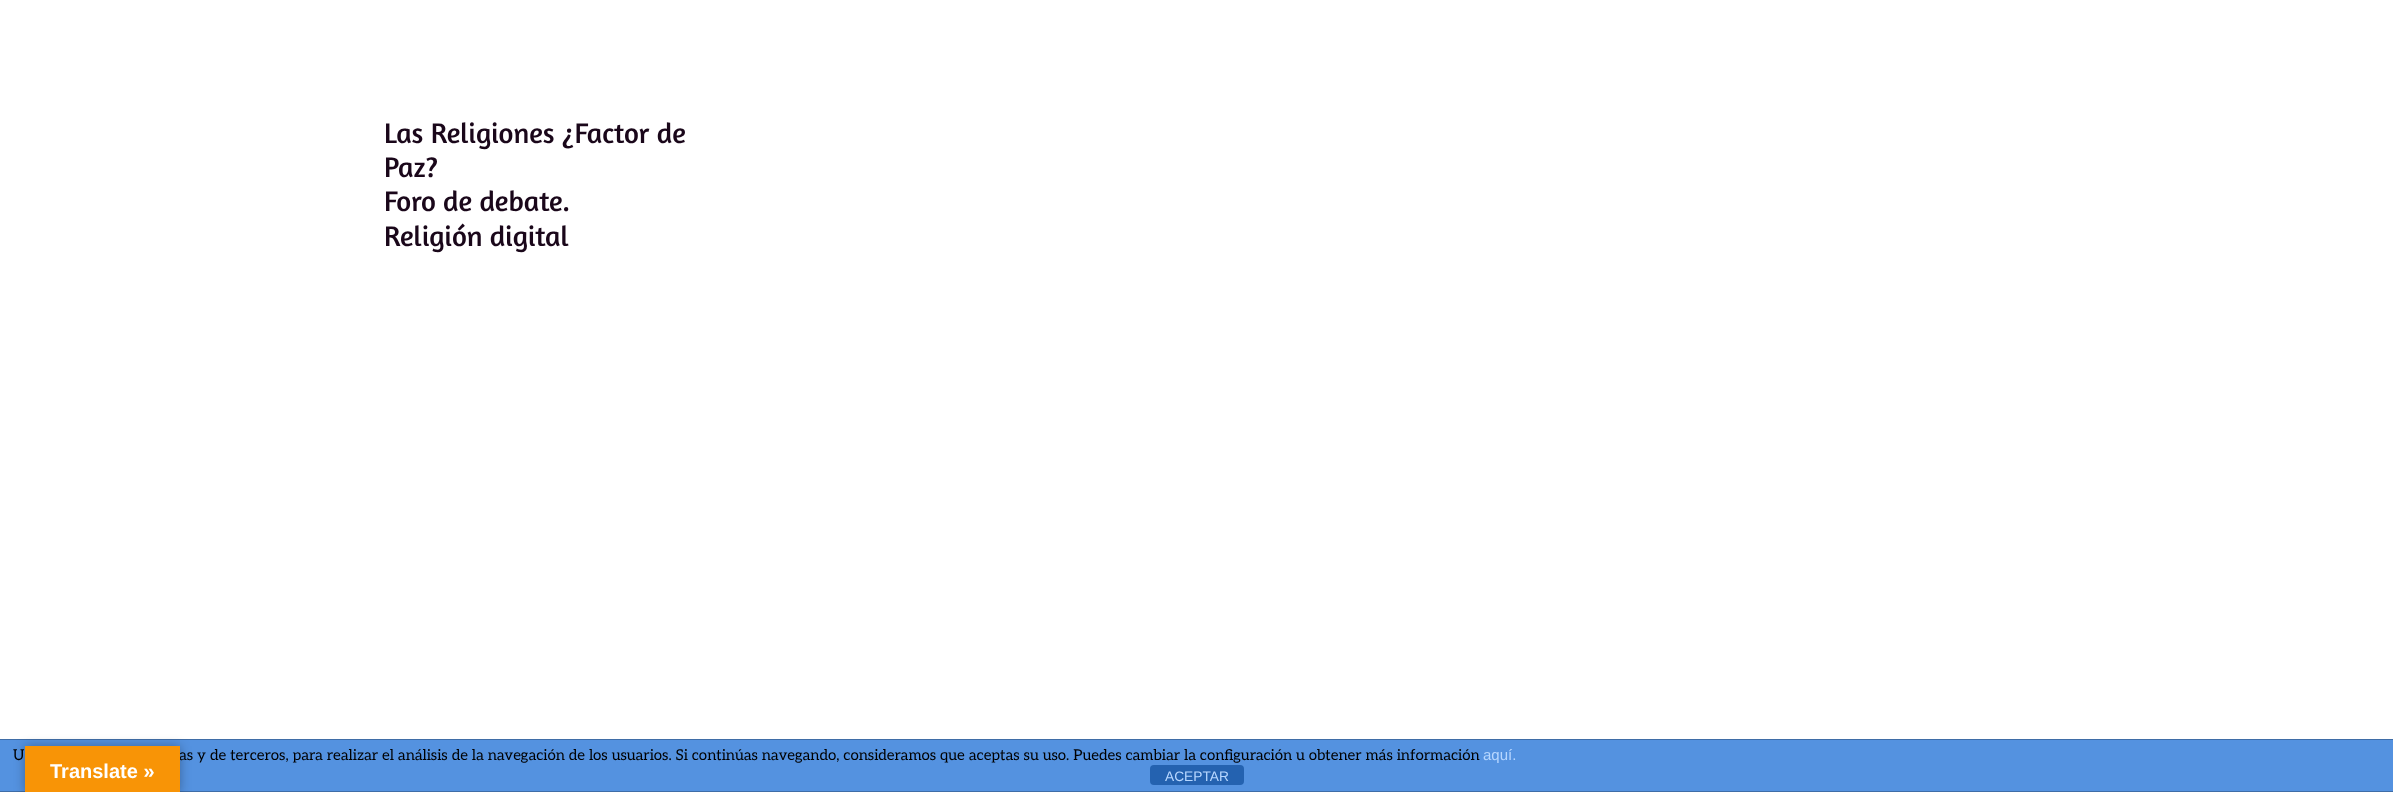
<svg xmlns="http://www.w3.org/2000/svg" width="2393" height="792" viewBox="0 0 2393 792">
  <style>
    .t1 { font: 28.75px Amaranth; fill: #1a071a; }
    .t2 { font: 15px Aleo; fill: #000; }
    .t3 { font: 15px Liberation Sans; fill: #b7d7ff; }
    .t4 { font: 13.75px Liberation Sans; fill: #b7d7ff; }
    .t5 { font: bold 20px Liberation Sans; fill: #fff; }
  </style>
  <rect width="100%" height="100%" fill="#fff"/>
  <text x="384" y="143" class="t1">Las Religiones ¿Factor de</text>
  <text x="384" y="177" class="t1">Paz?</text>
  <text x="384" y="211" class="t1">Foro de debate.</text>
  <text x="384" y="246" class="t1">Religión digital</text>
  <rect x="0" y="740" width="2393" height="51" fill="#5492e0"/>
  <rect x="0" y="739" width="2393" height="1" fill="#3f6da7"/>
  <rect x="0" y="791" width="2393" height="1" fill="#3f6da7"/>
  <text x="13" y="760" class="t2">U</text>
  <text x="179" y="760" class="t2">as y de terceros, para realizar el análisis de la navegación de los usuarios. Si continúas navegando, consideramos que aceptas su uso. Puedes cambiar la configuración u obtener más información</text>
  <text x="1483" y="760" class="t3">aquí.</text>
  <rect x="1150" y="765" width="94" height="20" rx="4" fill="#2462b0"/>
  <text x="1165" y="781" class="t4">ACEPTAR</text>
  <rect x="25" y="746" width="155" height="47" fill="#0000004d" filter="blur(5.5px)"/>
  <rect x="25" y="746" width="155" height="46" fill="#f89406"/>
  <text x="50" y="778" class="t5">Translate »</text>
</svg>
